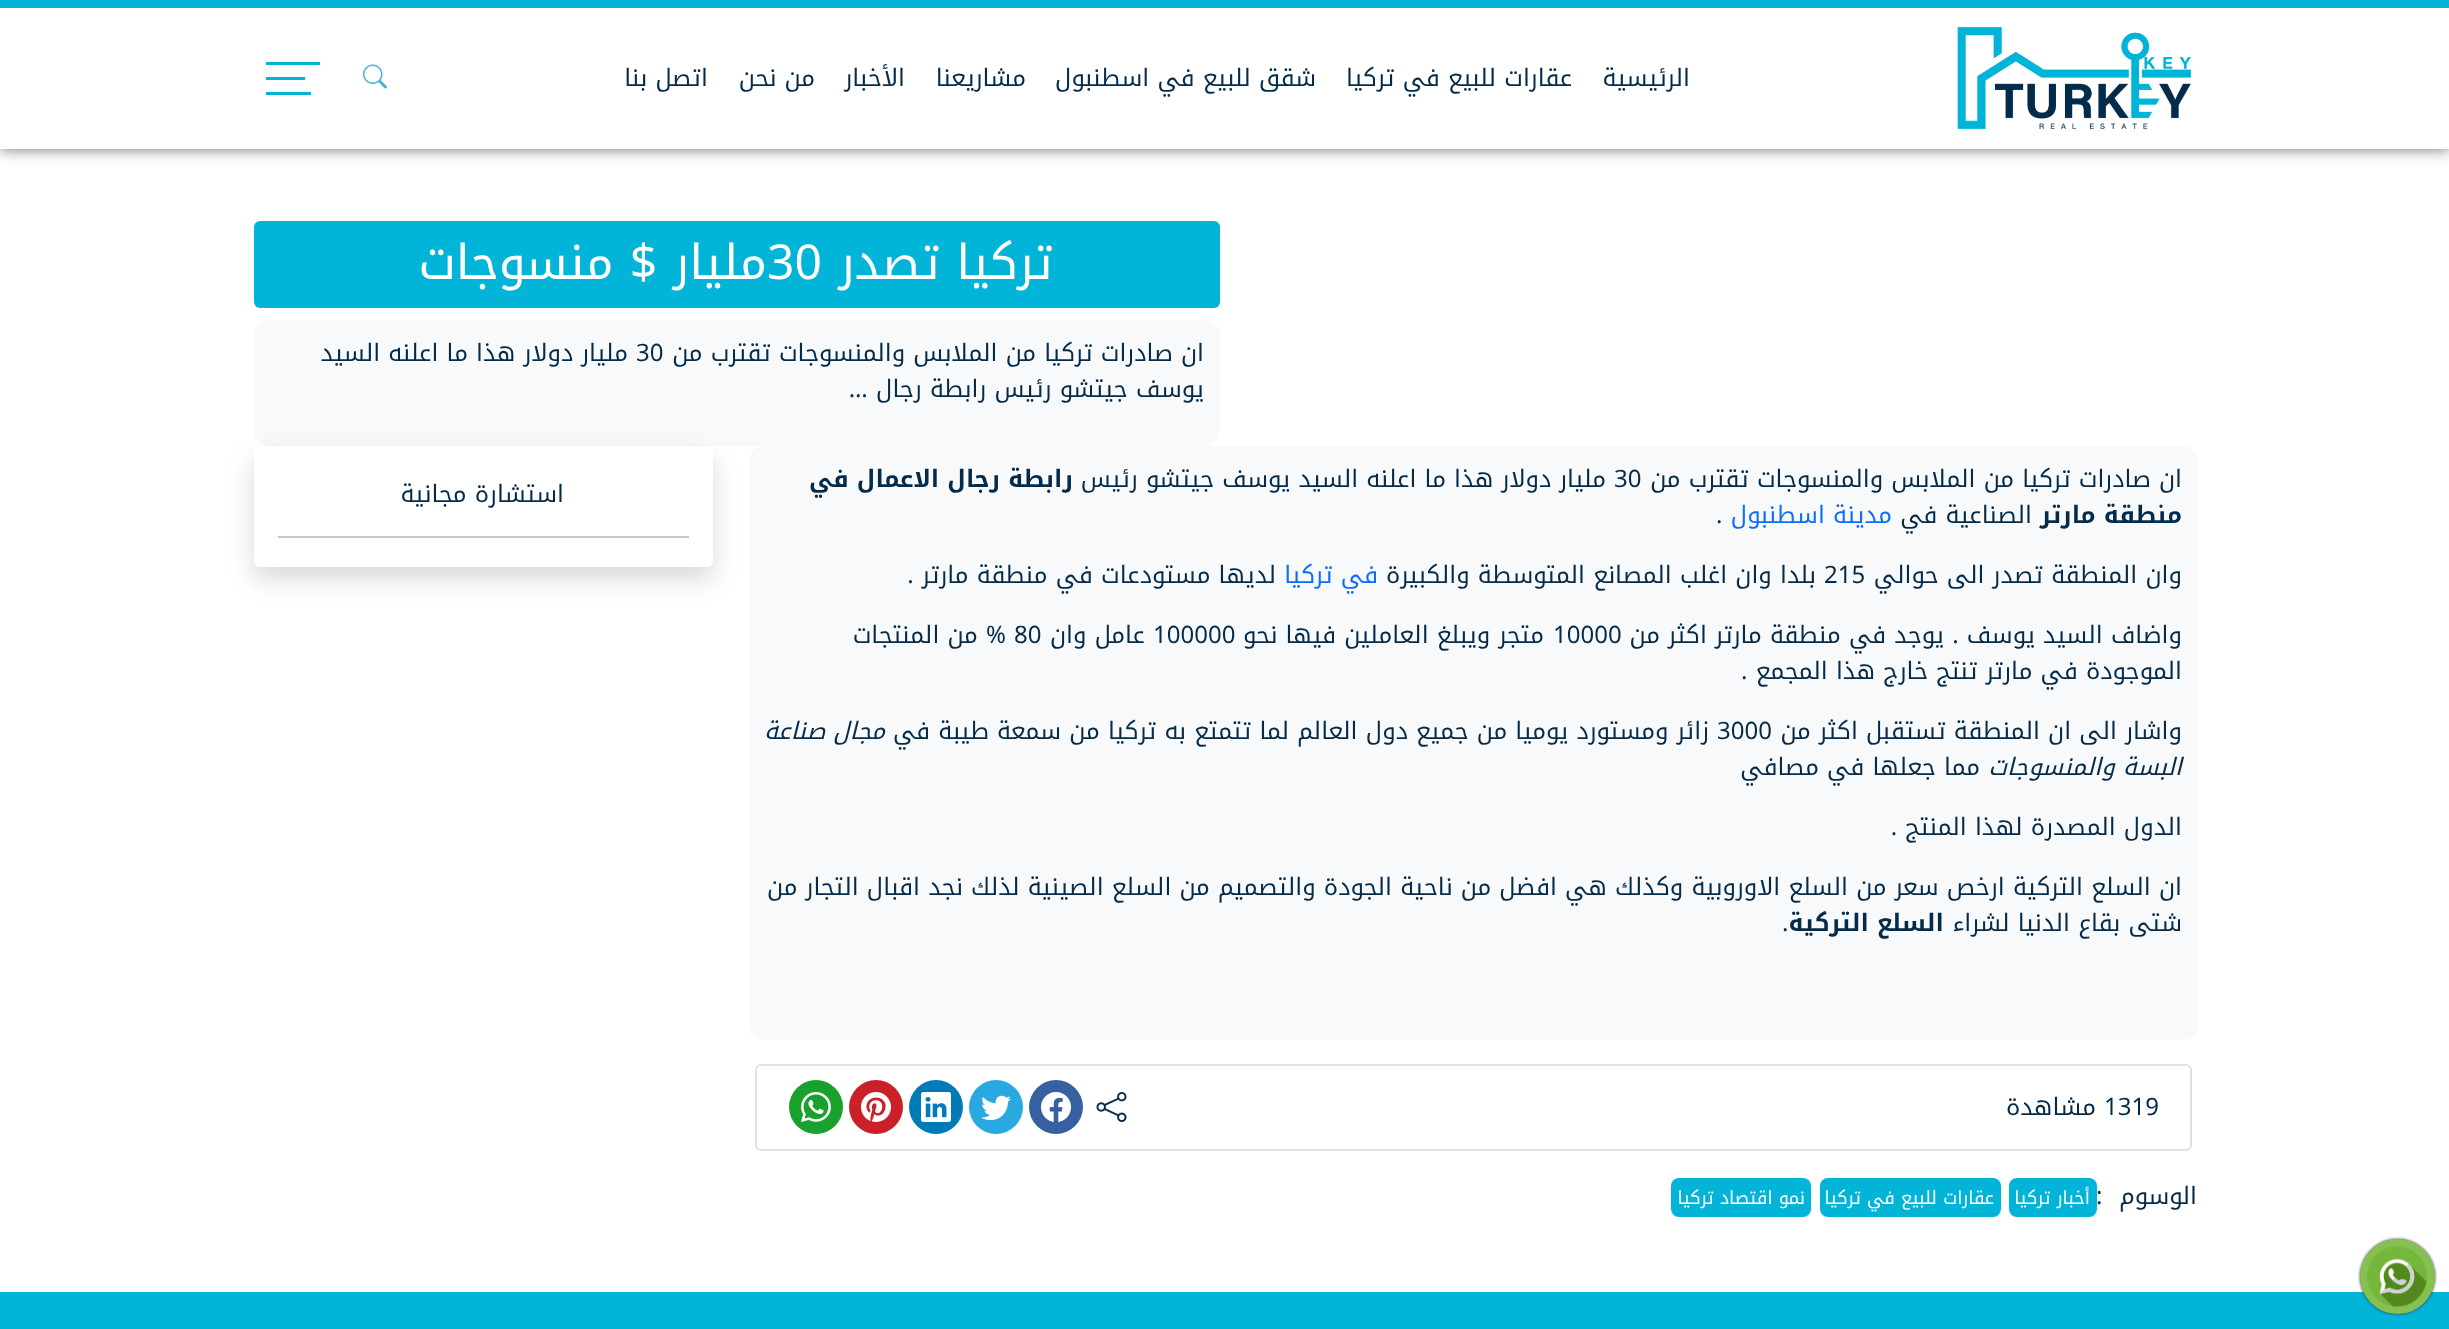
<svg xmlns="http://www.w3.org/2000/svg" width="2449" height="1329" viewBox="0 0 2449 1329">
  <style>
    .t1 { font: 24px Noto Kufi Arabic; direction: rtl; fill: #052b4a; }
    .t2 { font: 48px Noto Kufi Arabic; direction: rtl; fill: #fff; }
    .t3 { font: 48px Noto Kufi Arabic; fill: #fff; }
    .t4 { font: 24px Noto Kufi Arabic; fill: #052b4a; }
    .t5 { font: bold 24px Noto Kufi Arabic; direction: rtl; fill: #052b4a; }
    .t6 { font: 24px Noto Kufi Arabic; direction: rtl; fill: #0d6efd; }
    .t7 { font: italic 24px Noto Kufi Arabic; direction: rtl; fill: #052b4a; }
    .t8 { font: 18px Noto Kufi Arabic; direction: rtl; fill: #fff; }
  </style>
  <rect width="100%" height="100%" fill="#fff"/>
  <rect x="0" y="0" width="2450" height="149" fill="#6e6e6e" filter="blur(7.5px)"/>
  <rect x="0" y="8" width="2449" height="141" fill="#fff"/>
  <rect x="0" y="0" width="2449" height="8" fill="#02b4d8"/>
  <image x="1957" y="27" width="234" height="103" href="images/1.png"/>
  <text x="1690" y="86" class="t1">الرئيسية</text>
  <text x="1572" y="86" class="t1">عقارات للبيع في تركيا</text>
  <text x="1316" y="86" class="t1">شقق للبيع في اسطنبول</text>
  <text x="1026" y="86" class="t1">مشاريعنا</text>
  <text x="905" y="86" class="t1">الأخبار</text>
  <text x="815" y="86" class="t1">من نحن</text>
  <text x="708" y="86" class="t1">اتصل بنا</text>
  <image x="363" y="64" width="24" height="25" href="images/2.png"/>
  <rect x="266" y="62" width="54" height="3" fill="#02b4d8"/>
  <rect x="266" y="77" width="39" height="3" fill="#02b4d8"/>
  <rect x="266" y="92" width="45" height="3" fill="#02b4d8"/>
  <rect x="254" y="221" width="966" height="87" rx="6" fill="#02b4d8"/>
  <text x="1053" y="279" class="t2">تركيا تصدر</text>
  <text x="767" y="279" class="t3">30</text>
  <text x="767" y="279" class="t2">مليار $ منسوجات</text>
  <rect x="254" y="320" width="966" height="126" rx="15" fill="#f8f9fa"/>
  <text x="1204" y="361" class="t1">ان صادرات تركيا من الملابس والمنسوجات تقترب من</text>
  <text x="636" y="361" class="t4">30</text>
  <text x="628" y="361" class="t1">مليار دولار هذا ما اعلنه السيد</text>
  <text x="1204" y="397" class="t1">يوسف جيتشو رئيس رابطة رجال …</text>
  <rect x="749" y="446" width="1449" height="594" rx="15" fill="#f8f9fa"/>
  <text x="2182" y="487" class="t1">ان صادرات تركيا من الملابس والمنسوجات تقترب من</text>
  <text x="1614" y="487" class="t4">30</text>
  <text x="1606" y="487" class="t1">مليار دولار هذا ما اعلنه السيد يوسف جيتشو رئيس</text>
  <text x="1073" y="487" class="t5">رابطة رجال الاعمال في</text>
  <text x="2182" y="523" class="t5">منطقة مارتر</text>
  <text x="2032" y="523" class="t1">الصناعية في</text>
  <text x="1892" y="523" class="t6">مدينة اسطنبول</text>
  <text x="1716" y="523" class="t4">.</text>
  <text x="2182" y="583" class="t1">وان المنطقة تصدر الى حوالي</text>
  <text x="1824" y="583" class="t4">215</text>
  <text x="1816" y="583" class="t1">بلدا وان اغلب المصانع المتوسطة والكبيرة</text>
  <text x="1378" y="583" class="t6">في تركيا</text>
  <text x="1276" y="583" class="t1">لديها مستودعات في منطقة مارتر .</text>
  <text x="2182" y="643" class="t1">واضاف السيد يوسف . يوجد في منطقة مارتر اكثر من</text>
  <text x="1553" y="643" class="t4">10000</text>
  <text x="1544" y="643" class="t1">متجر ويبلغ العاملين فيها نحو</text>
  <text x="1153" y="643" class="t4">100000</text>
  <text x="1145" y="643" class="t1">عامل وان</text>
  <text x="1014" y="643" class="t4">80</text>
  <text x="1006" y="643" class="t1">% من المنتجات</text>
  <text x="2182" y="679" class="t1">الموجودة في مارتر تنتج خارج هذا المجمع .</text>
  <text x="2182" y="739" class="t1">واشار الى ان المنطقة تستقبل اكثر من</text>
  <text x="1717" y="739" class="t4">3000</text>
  <text x="1709" y="739" class="t1">زائر ومستورد يوميا من جميع دول العالم لما تتمتع به تركيا من سمعة طيبة في</text>
  <text x="885" y="739" class="t7">مجال صناعة</text>
  <text x="2182" y="775" class="t7">البسة والمنسوجات</text>
  <text x="1980" y="775" class="t1">مما جعلها في مصافي</text>
  <text x="2182" y="835" class="t1">الدول المصدرة لهذا المنتج .</text>
  <text x="2182" y="895" class="t1">ان السلع التركية ارخص سعر من السلع الاوروبية وكذلك هي افضل من ناحية الجودة والتصميم من السلع الصينية لذلك نجد اقبال التجار من</text>
  <text x="2182" y="931" class="t1">شتى بقاع الدنيا لشراء</text>
  <text x="1944" y="931" class="t5">السلع التركية</text>
  <text x="1782" y="931" class="t4">.</text>
  <rect x="756" y="1065" width="1435" height="85" rx="5" fill="none" stroke="#dee2e6" stroke-width="2"/>
  <text x="2104" y="1115" class="t4">1319</text>
  <text x="2096" y="1115" class="t1">مشاهدة</text>
  <image x="1096" y="1092" width="31" height="30" href="images/3.png"/>
  <circle cx="1056" cy="1107" r="27" fill="#36609f"/>
  <image x="1041" y="1092" width="30" height="30" href="images/4.png"/>
  <circle cx="996" cy="1107" r="27" fill="#2aa9e0"/>
  <image x="981" y="1095" width="30" height="26" href="images/5.png"/>
  <circle cx="936" cy="1107" r="27" fill="#007bb7"/>
  <image x="921" y="1092" width="30" height="30" href="images/6.png"/>
  <circle cx="876" cy="1107" r="27" fill="#cb2027"/>
  <image x="861" y="1092" width="30" height="30" href="images/7.png"/>
  <circle cx="816" cy="1107" r="27" fill="#19a12e"/>
  <image x="801" y="1092" width="30" height="30" href="images/8.png"/>
  <text x="2197" y="1204" class="t1">الوسوم</text>
  <text x="2096" y="1204" class="t4">:</text>
  <rect x="2009" y="1178" width="88" height="39" rx="8" fill="#02b4d8"/>
  <text x="2090" y="1204" class="t8">أخبار تركيا</text>
  <rect x="1820" y="1178" width="181" height="39" rx="8" fill="#02b4d8"/>
  <text x="1994" y="1204" class="t8">عقارات للبيع في تركيا</text>
  <rect x="1671" y="1178" width="140" height="39" rx="8" fill="#02b4d8"/>
  <text x="1805" y="1204" class="t8">نمو اقتصاد تركيا</text>
  <rect x="254" y="458" width="459" height="121" rx="6" fill="#00000026" filter="blur(12px)"/>
  <rect x="254" y="446" width="459" height="121" rx="6" fill="#fff"/>
  <text x="564" y="502" class="t1">استشارة مجانية</text>
  <rect x="278" y="536" width="411" height="2" fill="#c1cad2"/>
  <rect x="0" y="1292" width="2449" height="37" fill="#02b4d8"/>
  <rect x="2360" y="1239" width="75" height="75" rx="37.5" fill="#333" filter="blur(1.5px)"/>
  <circle cx="2397.5" cy="1276.5" r="37.5" fill="#86c051"/>
  <image x="2367" y="1246" width="60" height="61" href="images/9.png"/>
</svg>
